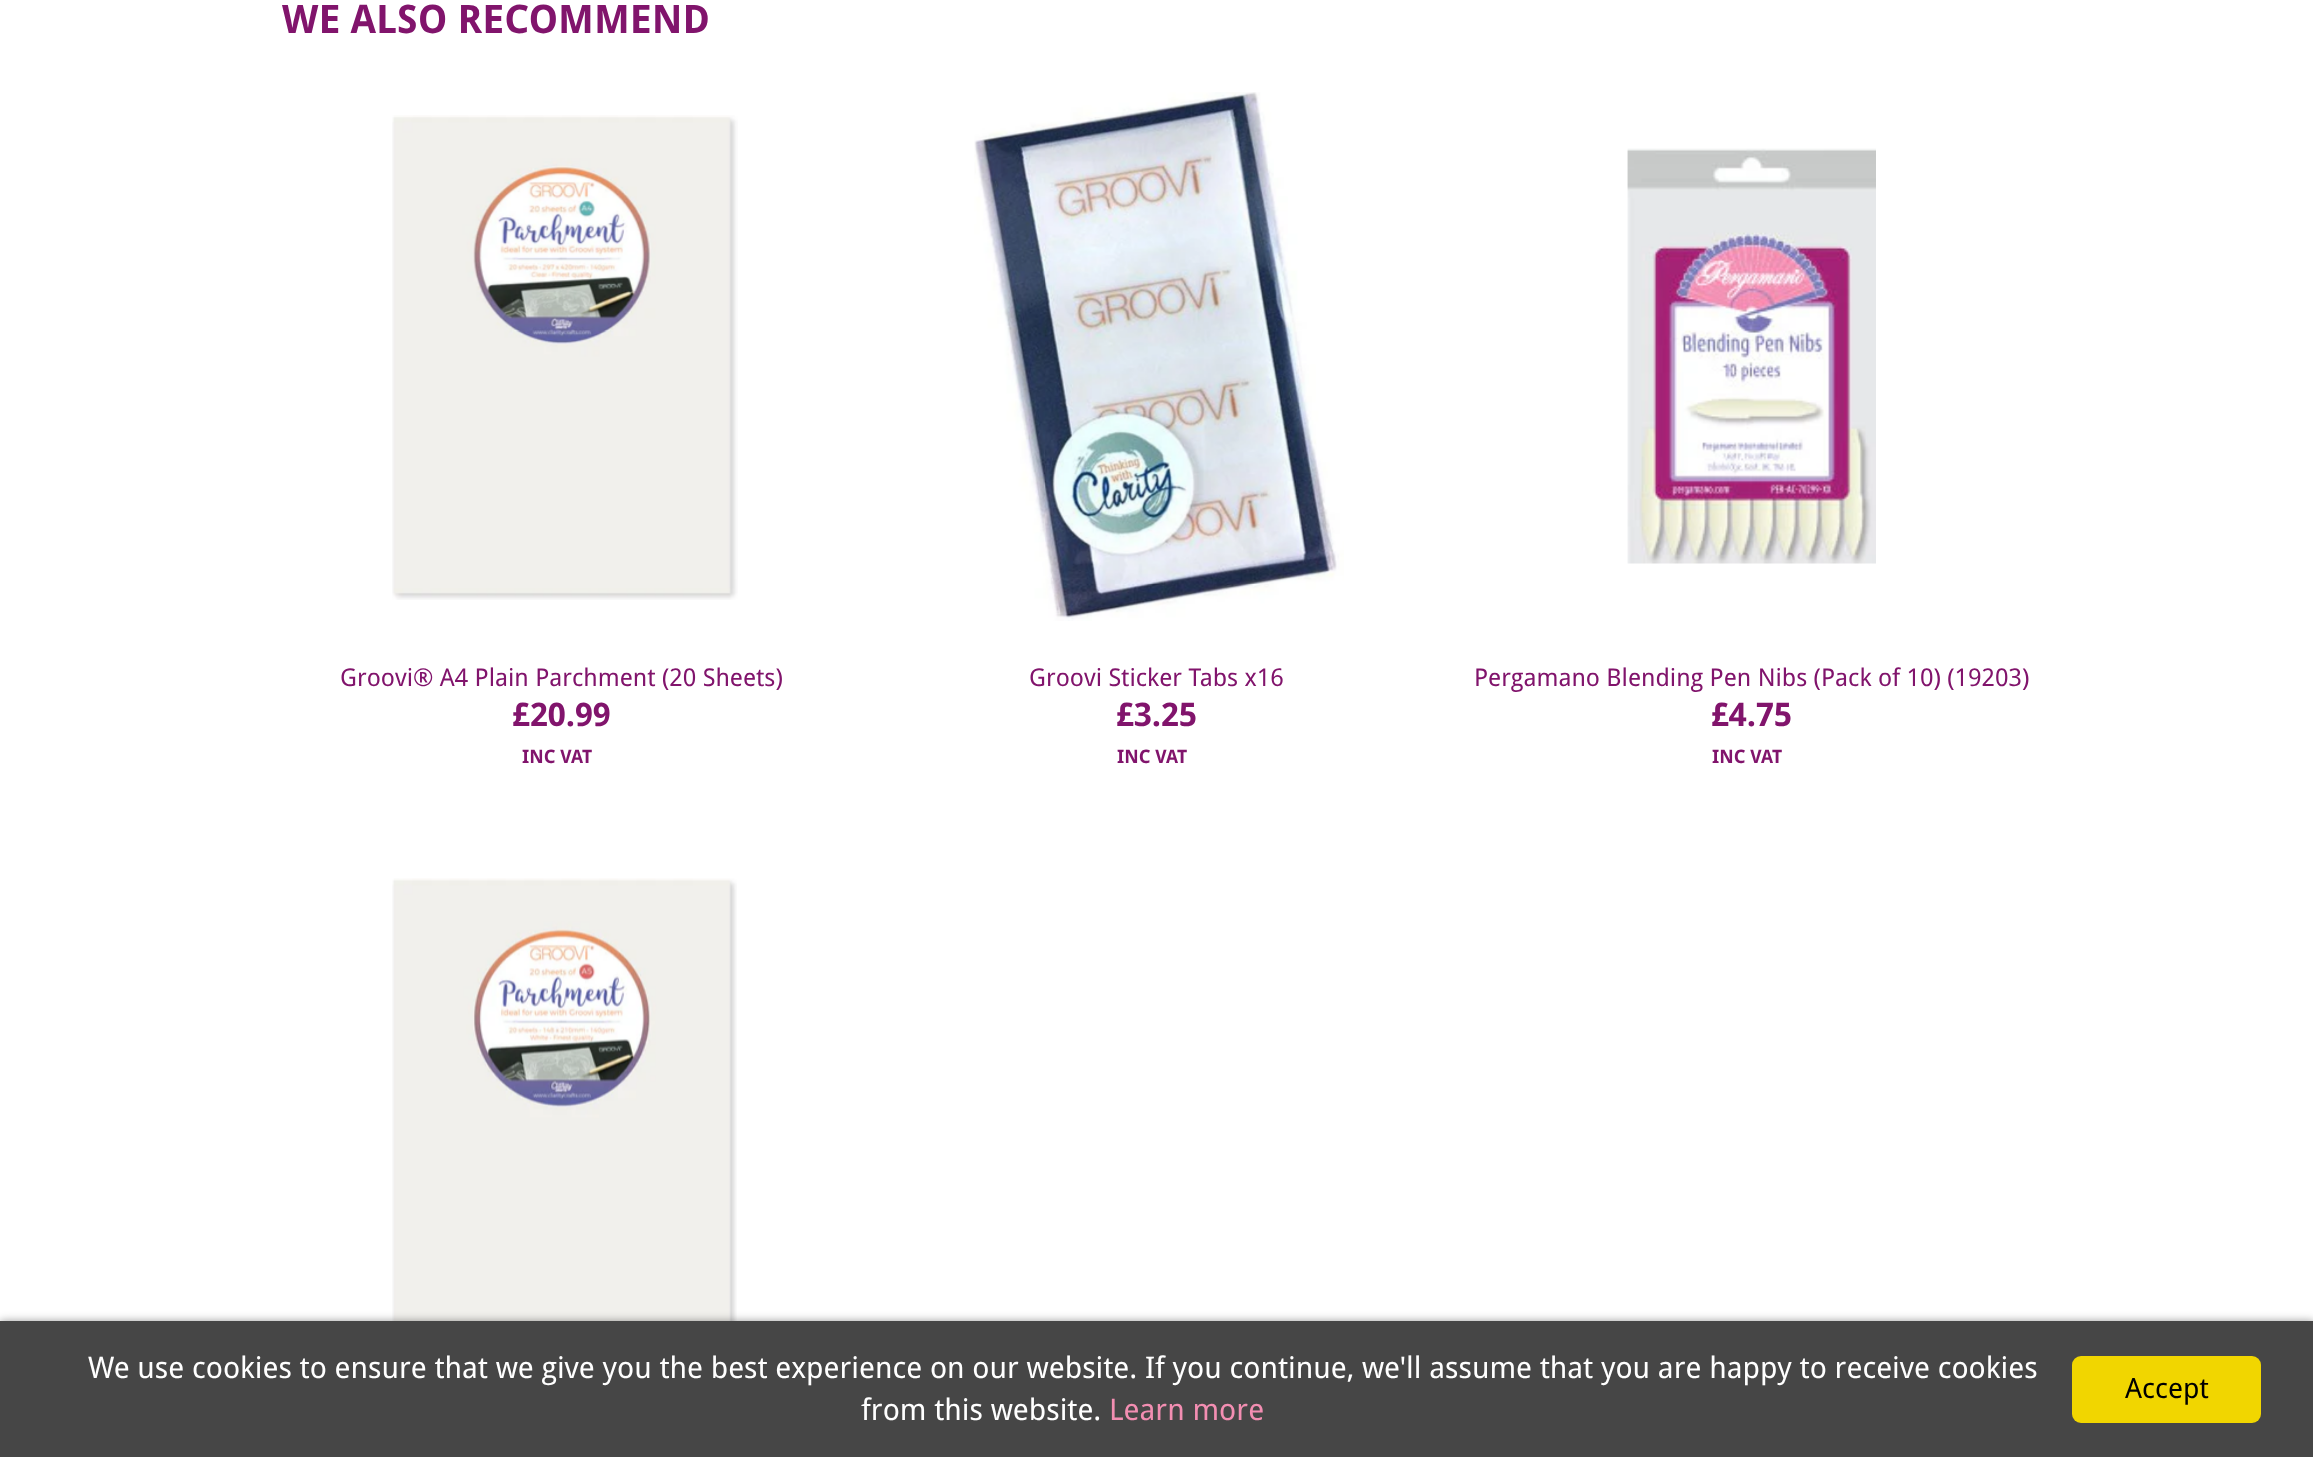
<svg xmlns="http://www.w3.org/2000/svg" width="2313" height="1457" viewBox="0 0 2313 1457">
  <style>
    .t1 { font: bold 39.25px Droid Sans; fill: #81146c; }
    .t2 { font: 24.5px Droid Sans; fill: #81146c; }
    .t3 { font: bold 32.5px Droid Sans; fill: #81146c; }
    .t4 { font: bold 18.5px Droid Sans; fill: #81146c; }
    .t5 { font: 29.75px Droid Sans; fill: #fff; }
    .t6 { font: 29.75px Droid Sans; fill: #f38eb2; }
    .t7 { font: 28px Droid Sans; fill: #000; }
  </style>
  <rect width="100%" height="100%" fill="#fff"/>
  <text x="282" y="33" class="t1">WE ALSO RECOMMEND</text>
  <image x="392" y="115" width="346" height="485" href="images/1.png"/>
  <text x="340" y="686" class="t2">Groovi® A4 Plain Parchment (20 Sheets)</text>
  <text x="512" y="726" class="t3">£20.99</text>
  <text x="522" y="763" class="t4">INC VAT</text>
  <image x="974" y="92" width="370" height="529" href="images/2.png"/>
  <text x="1029" y="686" class="t2">Groovi Sticker Tabs x16</text>
  <text x="1116" y="726" class="t3">£3.25</text>
  <text x="1117" y="763" class="t4">INC VAT</text>
  <image x="1627" y="148" width="249" height="416" href="images/3.png"/>
  <text x="1474" y="686" class="t2">Pergamano Blending Pen Nibs (Pack of 10) (19203)</text>
  <text x="1711" y="726" class="t3">£4.75</text>
  <text x="1712" y="763" class="t4">INC VAT</text>
  <image x="392" y="878" width="345" height="443" href="images/4.png"/>
  <rect x="0" y="1321" width="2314" height="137" fill="#00000066" filter="blur(4.5px)"/>
  <rect x="0" y="1321" width="2313" height="136" fill="#464646"/>
  <text x="88" y="1378" class="t5">We use cookies to ensure that we give you the best experience on our website. If you continue, we'll assume that you are happy to receive cookies</text>
  <text x="861" y="1420" class="t5">from this website.</text>
  <text x="1109" y="1420" class="t6">Learn more</text>
  <rect x="2072" y="1356" width="189" height="67" rx="9" fill="#f1d600"/>
  <text x="2125" y="1398" class="t7">Accept</text>
</svg>
